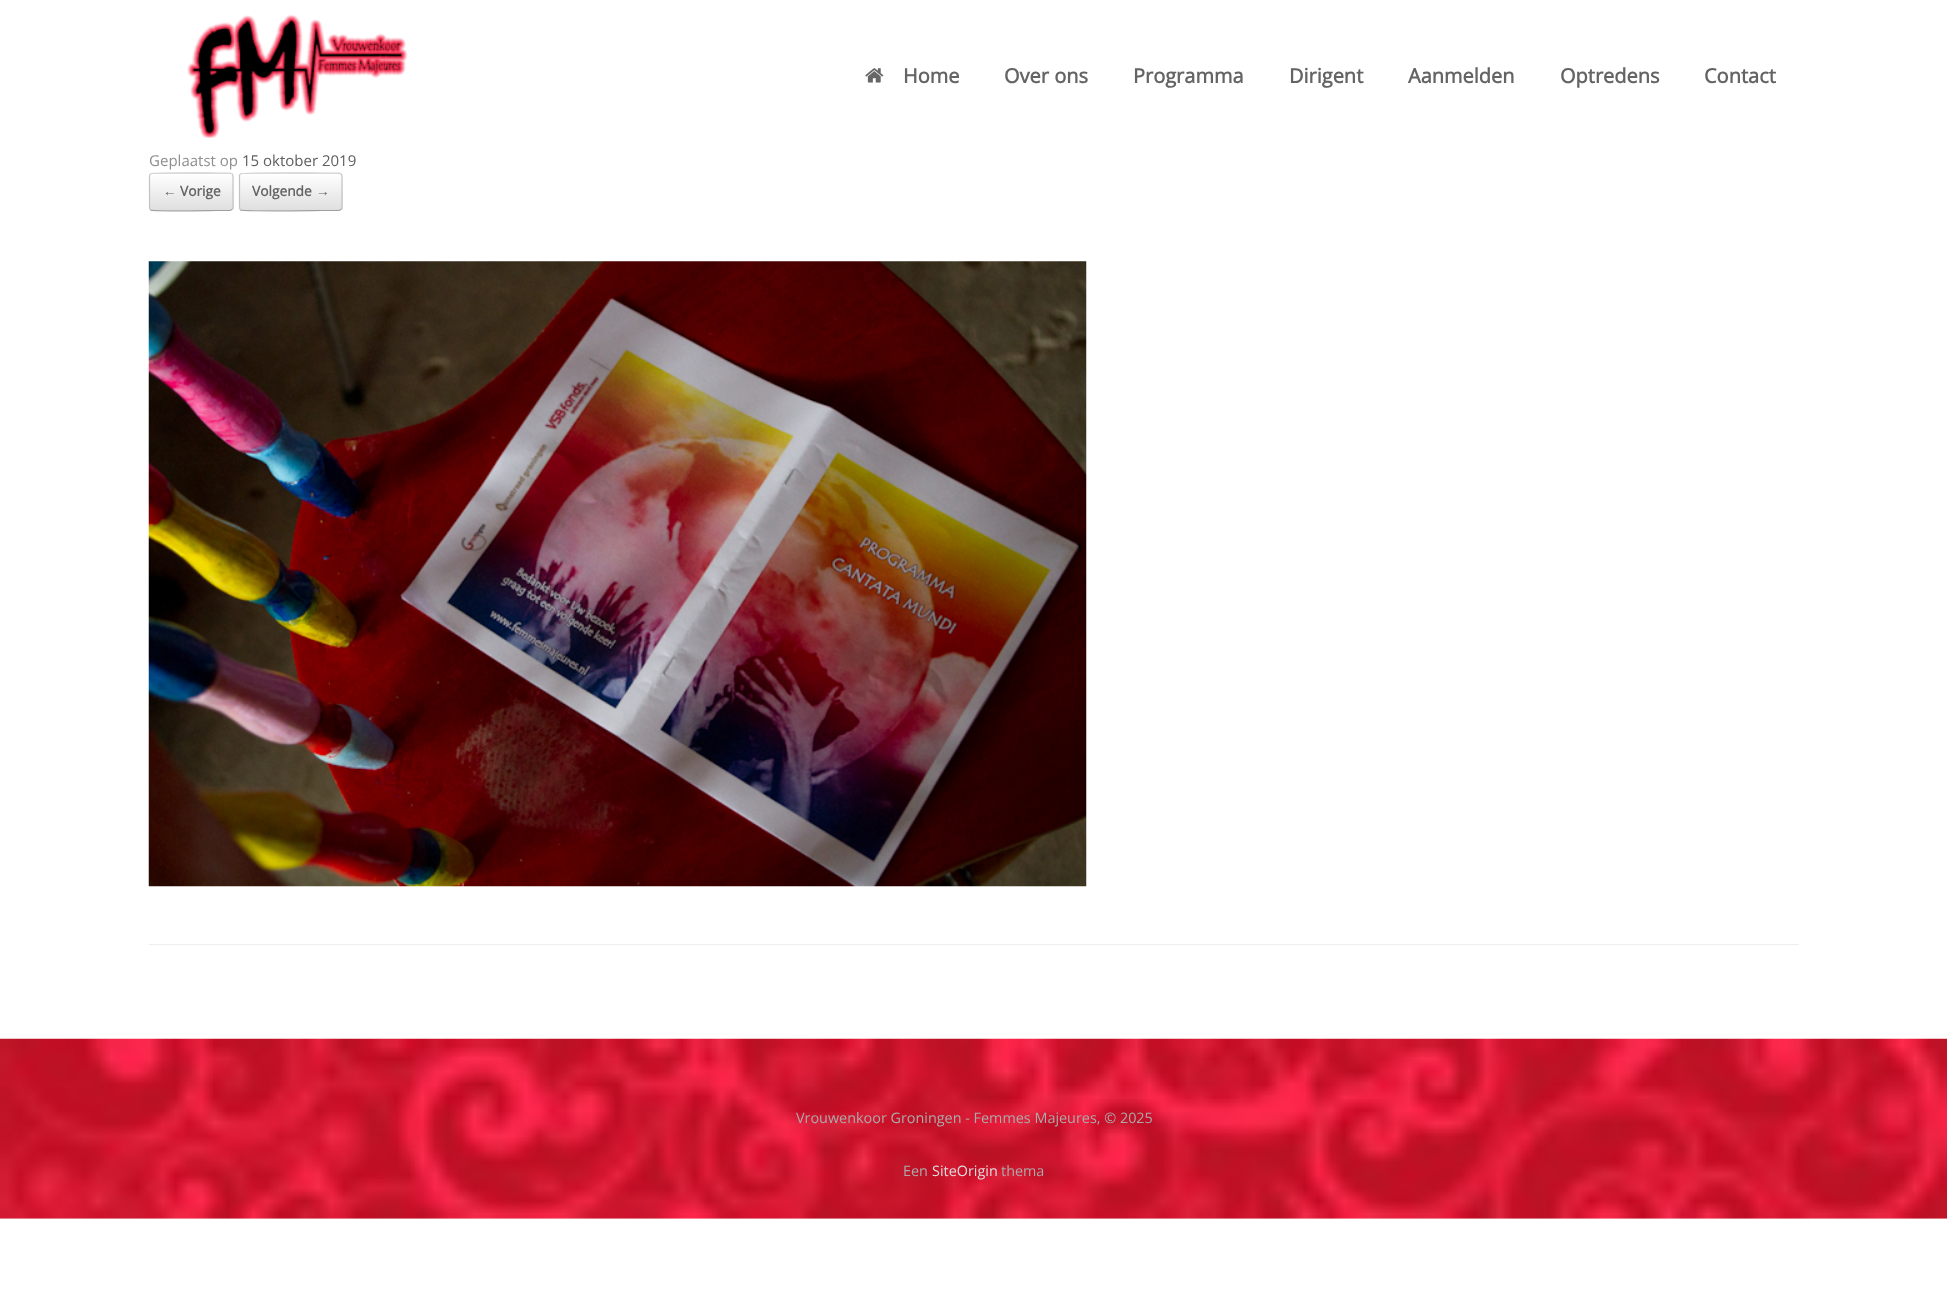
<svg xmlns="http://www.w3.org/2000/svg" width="1947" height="1312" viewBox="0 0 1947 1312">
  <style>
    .t1 { font: bold 20px Open Sans; fill: #646464; }
    .t2 { font: 15px Noto Sans; fill: #8f8f8f; }
    .t3 { font: 15px Open Sans; fill: #8f8f8f; }
    .t4 { font: 15px Open Sans; fill: #5e5e5e; }
    .t5 { font: bold 13.75px Liberation Serif; fill: #646464; }
    .t6 { font: bold 13.75px Open Sans; fill: #646464; }
    .t7 { font: 14.4px Open Sans; fill: #aaa; }
    .t8 { font: 14.4px Open Sans; fill: #ddd; }
  </style>
  <defs>
    <clipPath id="clip1"><rect x="149" y="173" width="85" height="38" rx="4"/></clipPath>
    <linearGradient id="g1" gradientUnits="userSpaceOnUse" x1="150" y1="174" x2="150" y2="138"><stop offset="0" stop-color="#dfdfdf"/><stop offset="1" stop-color="#fff"/></linearGradient>
    <linearGradient id="g2" gradientUnits="userSpaceOnUse" x1="150" y1="210" x2="150" y2="174"><stop offset="0" stop-color="#dfdfdf"/><stop offset="1" stop-color="#fff"/></linearGradient>
    <clipPath id="clip2"><rect x="239" y="173" width="104" height="38" rx="4"/></clipPath>
    <linearGradient id="g3" gradientUnits="userSpaceOnUse" x1="240" y1="174" x2="240" y2="138"><stop offset="0" stop-color="#dfdfdf"/><stop offset="1" stop-color="#fff"/></linearGradient>
    <linearGradient id="g4" gradientUnits="userSpaceOnUse" x1="240" y1="210" x2="240" y2="174"><stop offset="0" stop-color="#dfdfdf"/><stop offset="1" stop-color="#fff"/></linearGradient>
  </defs>
  <rect width="100%" height="100%" fill="#fff"/>
  <image x="187" y="15" width="221" height="123" href="images/1.png"/>
  <image x="865" y="68" width="19" height="15" href="images/2.png"/>
  <text x="903" y="83" class="t1">Home</text>
  <text x="1004" y="83" class="t1">Over ons</text>
  <text x="1133" y="83" class="t1">Programma</text>
  <text x="1289" y="83" class="t1">Dirigent</text>
  <text x="1408" y="83" class="t1">Aanmelden</text>
  <text x="1560" y="83" class="t1">Optredens</text>
  <text x="1704" y="83" class="t1">Contact</text>
  <rect x="149" y="944" width="1650" height="1" fill="#eee"/>
  <text x="149" y="166" class="t2">G</text>
  <text x="160" y="166" class="t3">eplaatst op</text>
  <text x="242" y="166" class="t4">15 oktober 2019</text>
  <g clip-path="url(#clip1)">
    <rect x="149" y="173" width="85" height="1" fill="url(#g1)"/>
    <rect x="149" y="174" width="85" height="36" fill="url(#g2)"/>
  </g>
  <path d="M150.5 174C152.5 172 209.5 173 217 173H230L232 174" fill="none" stroke="#d2d2d2" stroke-width="1.2"/>
  <path d="M232 174C233 174.5 233 175.5 233 176V207.5C233 208.5 233 209 232 209.5" fill="none" stroke="#c3c3c3" stroke-width="1.2"/>
  <path d="M232 209.5L230 210.5H217C209.5 210.5 152.5 211.5 150.5 210V209.5" fill="none" stroke="#9f9f9f" stroke-width="1.2"/>
  <path d="M150.5 209.5C149.5 209 149.5 208.5 149.5 207.5V176C149.5 175.5 149.5 174.5 150.5 174" fill="none" stroke="#c3c3c3" stroke-width="1.2"/>
  <text x="163" y="196" class="t5">←</text>
  <text x="180" y="196" class="t6">Vorige</text>
  <g clip-path="url(#clip2)">
    <rect x="239" y="173" width="104" height="1" fill="url(#g3)"/>
    <rect x="239" y="174" width="104" height="36" fill="url(#g4)"/>
  </g>
  <path d="M240.5 174C242.5 172 314 173 322.5 173H339L341 174" fill="none" stroke="#d2d2d2" stroke-width="1.2"/>
  <path d="M341 174C341.5 174.5 342 175.5 342 176V207.5C342 208.5 341.5 209 341 209.5" fill="none" stroke="#c3c3c3" stroke-width="1.2"/>
  <path d="M341 209.5L339 210.5H322.5C314 210.5 242.5 211.5 240.5 210V209.5" fill="none" stroke="#9f9f9f" stroke-width="1.2"/>
  <path d="M240.5 209.5C239.5 209 239.5 208.5 239.5 207.5V176C239.5 175.5 239.5 174.5 240.5 174" fill="none" stroke="#c3c3c3" stroke-width="1.2"/>
  <text x="252" y="196" class="t6">Volgende</text>
  <text x="316" y="196" class="t5">→</text>
  <image x="148" y="261" width="939" height="626" href="images/3.png"/>
  <image x="0" y="1038" width="1947" height="181" href="images/4.png"/>
  <text x="796" y="1123" class="t7">Vrouwenkoor Groningen - Femmes Majeures, © 2025</text>
  <text x="903" y="1176" class="t7">Een</text>
  <text x="932" y="1176" class="t8">SiteOrigin</text>
  <text x="1001" y="1176" class="t7">thema</text>
</svg>
